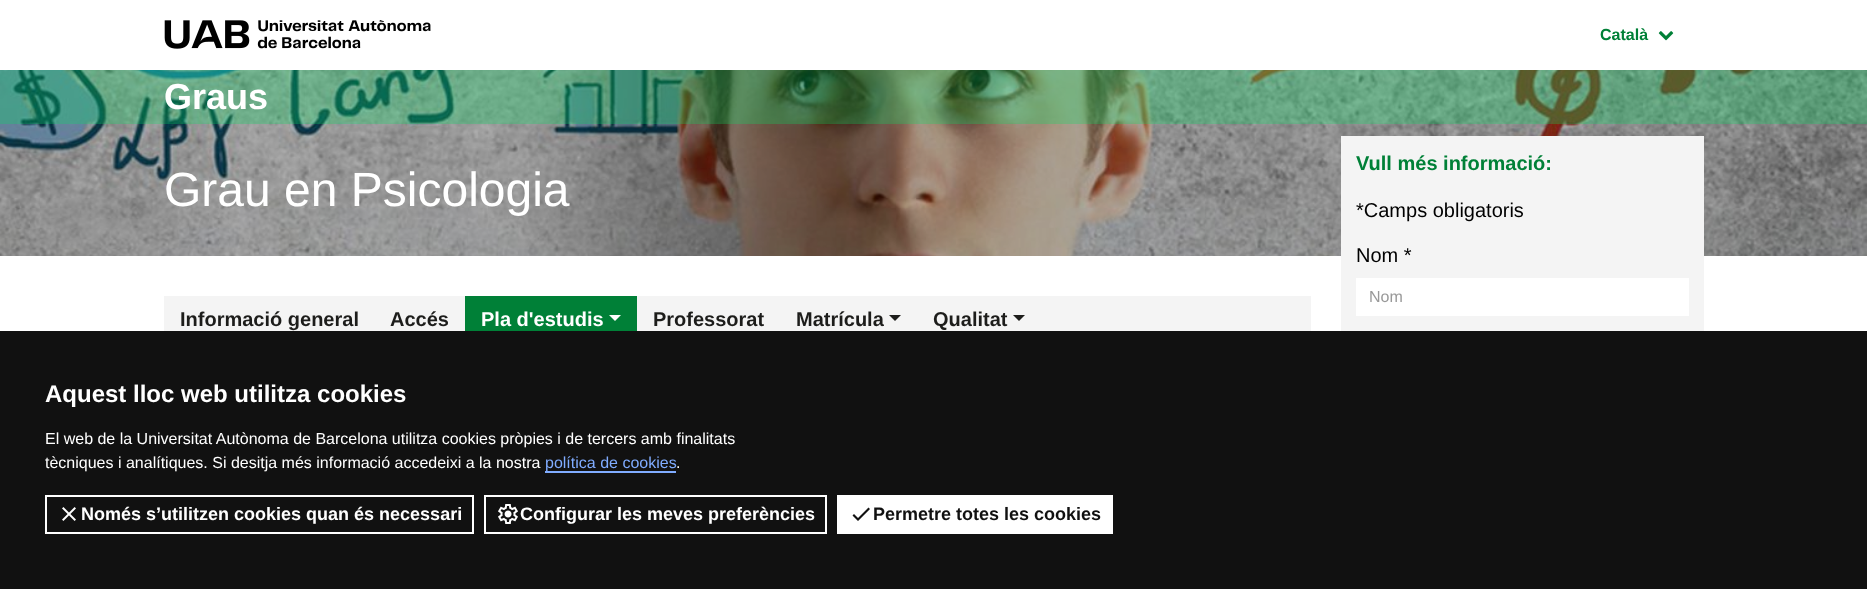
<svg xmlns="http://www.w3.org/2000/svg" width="1867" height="589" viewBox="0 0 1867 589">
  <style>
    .t1 { font: bold 16px Liberation Sans; fill: #008037; }
    .t2 { font: bold 36px Liberation Sans; fill: #fff; }
    .t3 { font: 48px Liberation Sans; fill: #fff; }
    .t4 { font: bold 20px Liberation Sans; fill: #008037; }
    .t5 { font: 20px Liberation Sans; fill: #000; }
    .t6 { font: 16px Liberation Sans; fill: #999; }
    .t7 { font: bold 20px Liberation Sans; fill: #1d1d1b; }
    .t8 { font: bold 20px Liberation Sans; fill: #fff; }
    .t9 { font: bold 24px Liberation Sans; fill: #fff; }
    .t10 { font: 16px Liberation Sans; fill: #fff; }
    .t11 { font: 16px Liberation Sans; fill: #80acff; }
    .t12 { font: bold 18px Liberation Sans; fill: #fff; }
    .t13 { font: bold 18px Liberation Sans; fill: #111; }
  </style>
  <rect width="100%" height="100%" fill="#fff"/>
  <image x="164" y="20" width="267" height="29" href="images/1.png"/>
  <text x="1600" y="40" class="t1">Català</text>
  <image x="1658" y="31" width="16" height="10" href="images/2.png"/>
  <image x="0" y="70" width="1867" height="186" href="images/3.png"/>
  <rect x="0" y="70" width="1867" height="54" fill="#00803780"/>
  <text x="164" y="109" class="t2">Graus</text>
  <rect x="0" y="124" width="1867" height="132" fill="#0000004d"/>
  <text x="164" y="206" class="t3">Grau en Psicologia</text>
  <rect x="1341" y="136" width="363" height="195" fill="#f4f4f4"/>
  <text x="1356" y="170" class="t4">Vull més informació:</text>
  <text x="1356" y="217" class="t5">*Camps obligatoris</text>
  <text x="1356" y="262" class="t5">Nom *</text>
  <rect x="1356.5" y="278.5" width="332" height="37" fill="#fff" stroke="#fff"/>
  <text x="1369" y="302" class="t6">Nom</text>
  <rect x="164" y="296" width="1147" height="35" fill="#f4f4f4"/>
  <text x="180" y="326" class="t7">Informació general</text>
  <text x="390" y="326" class="t7">Accés</text>
  <rect x="465" y="296" width="172" height="35" fill="#008037"/>
  <text x="481" y="326" class="t8">Pla d'estudis</text>
  <path d="M609 315H621L615 321Z" fill="#fff"/>
  <text x="653" y="326" class="t7">Professorat</text>
  <text x="796" y="326" class="t7">Matrícula</text>
  <path d="M889 315H901L895 321Z" fill="#1d1d1b"/>
  <text x="933" y="326" class="t7">Qualitat</text>
  <path d="M1013 315H1025L1019 321Z" fill="#1d1d1b"/>
  <rect x="0" y="331" width="1867" height="258" fill="#111"/>
  <text x="45" y="402" class="t9">Aquest lloc web utilitza cookies</text>
  <text x="45" y="444" class="t10">El web de la Universitat Autònoma de Barcelona utilitza cookies pròpies i de tercers amb finalitats</text>
  <text x="45" y="468" class="t10">tècniques i analítiques. Si desitja més informació accedeixi a la nostra</text>
  <rect x="545" y="471" width="131" height="2" fill="#80acff"/>
  <text x="545" y="468" class="t11">política de cookies</text>
  <text x="676" y="468" class="t10">.</text>
  <rect x="46" y="496" width="427" height="37" fill="none" stroke="#fff" stroke-width="2"/>
  <image x="62" y="507" width="14" height="14" href="images/4.png"/>
  <text x="81" y="520" class="t12">Només s’utilitzen cookies quan és necessari</text>
  <rect x="485" y="496" width="341" height="37" fill="none" stroke="#fff" stroke-width="2"/>
  <image x="498" y="504" width="20" height="20" href="images/5.png"/>
  <text x="520" y="520" class="t12">Configurar les meves preferències</text>
  <rect x="837" y="495" width="276" height="39" fill="#fff"/>
  <path d="M858 518L854 514L852.5 515.5L858 521L870 509L868.5 507.5Z" fill="#111"/>
  <text x="873" y="520" class="t13">Permetre totes les cookies</text>
</svg>
